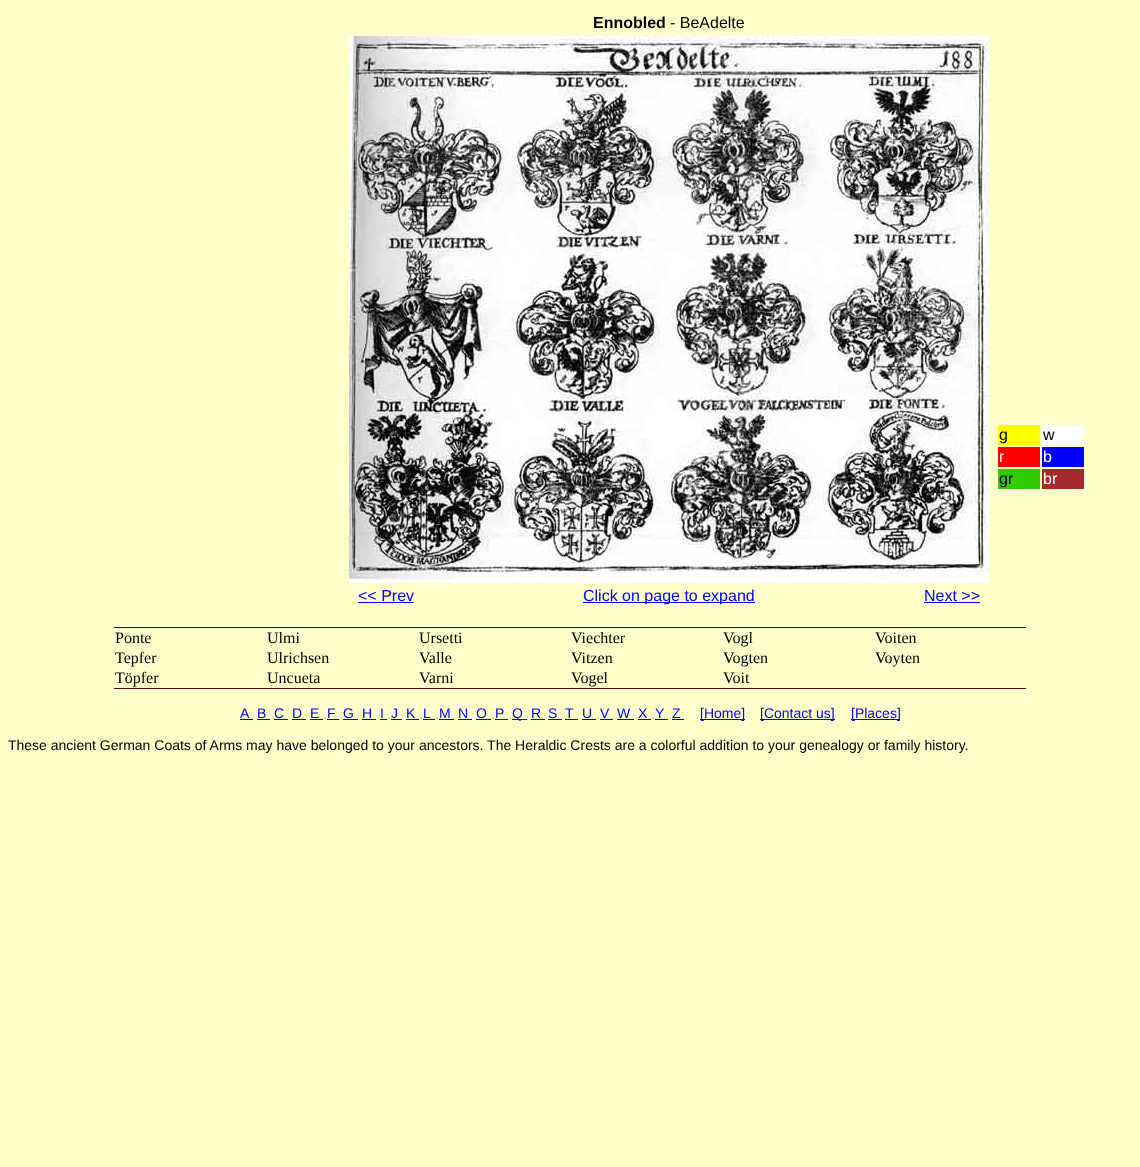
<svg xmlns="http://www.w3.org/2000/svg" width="1140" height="1167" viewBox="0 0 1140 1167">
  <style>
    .t1 { font: bold 16px Liberation Sans; fill: #000; }
    .t2 { font: 16px Liberation Sans; fill: #000; }
    .t3 { font: 16px Liberation Sans; fill: #00e; }
    .t4 { font: 16px Liberation Sans; fill: #fff; }
    .t5 { font: 16px Liberation Serif; fill: #000; }
    .t6 { font: 14px Liberation Sans; fill: #00e; }
    .t7 { font: 14px Liberation Sans; fill: #000; }
  </style>
  <rect width="100%" height="100%" fill="#ffc"/>
  <text x="593" y="28" class="t1">Ennobled</text>
  <text x="670" y="28" class="t2">- BeAdelte</text>
  <image x="349" y="36" width="640" height="547" href="images/1.png"/>
  <text x="358" y="601" class="t3">&lt;&lt; Prev</text>
  <rect x="358" y="602" width="56" height="1" fill="#00e"/>
  <rect x="583" y="602" width="172" height="1" fill="#00e"/>
  <text x="583" y="601" class="t3">Click on page to expand</text>
  <text x="924" y="601" class="t3">Next &gt;&gt;</text>
  <rect x="924" y="602" width="56" height="1" fill="#00e"/>
  <rect x="998" y="425" width="42" height="20" fill="#ff0"/>
  <text x="999" y="440" class="t2">g</text>
  <rect x="1042" y="425" width="42" height="20" fill="#fff"/>
  <text x="1043" y="440" class="t2">w</text>
  <rect x="998" y="447" width="42" height="20" fill="#f00"/>
  <text x="999" y="462" class="t4">r</text>
  <rect x="1042" y="447" width="42" height="20" fill="#00f"/>
  <text x="1043" y="462" class="t4">b</text>
  <rect x="998" y="469" width="42" height="20" fill="#3c0"/>
  <text x="999" y="484" class="t2">gr</text>
  <rect x="1042" y="469" width="42" height="20" fill="#a52a2a"/>
  <text x="1043" y="484" class="t4">br</text>
  <rect x="114" y="627" width="912" height="1" fill="#600"/>
  <rect x="114" y="688" width="912" height="1" fill="#600"/>
  <text x="115" y="643" class="t5">Ponte</text>
  <text x="267" y="643" class="t5">Ulmi</text>
  <text x="419" y="643" class="t5">Ursetti</text>
  <text x="571" y="643" class="t5">Viechter</text>
  <text x="723" y="643" class="t5">Vogl</text>
  <text x="875" y="643" class="t5">Voiten</text>
  <text x="115" y="663" class="t5">Tepfer</text>
  <text x="267" y="663" class="t5">Ulrichsen</text>
  <text x="419" y="663" class="t5">Valle</text>
  <text x="571" y="663" class="t5">Vitzen</text>
  <text x="723" y="663" class="t5">Vogten</text>
  <text x="875" y="663" class="t5">Voyten</text>
  <text x="115" y="683" class="t5">Töpfer</text>
  <text x="267" y="683" class="t5">Uncueta</text>
  <text x="419" y="683" class="t5">Varni</text>
  <text x="571" y="683" class="t5">Vogel</text>
  <text x="723" y="683" class="t5">Voit</text>
  <text x="240" y="718" class="t6">A</text>
  <rect x="240" y="719" width="13" height="1" fill="#00e"/>
  <text x="257" y="718" class="t6">B</text>
  <rect x="257" y="719" width="13" height="1" fill="#00e"/>
  <text x="274" y="718" class="t6">C</text>
  <rect x="274" y="719" width="14" height="1" fill="#00e"/>
  <text x="292" y="718" class="t6">D</text>
  <rect x="292" y="719" width="14" height="1" fill="#00e"/>
  <text x="310" y="718" class="t6">E</text>
  <rect x="310" y="719" width="13" height="1" fill="#00e"/>
  <text x="327" y="718" class="t6">F</text>
  <rect x="327" y="719" width="12" height="1" fill="#00e"/>
  <text x="343" y="718" class="t6">G</text>
  <rect x="343" y="719" width="15" height="1" fill="#00e"/>
  <text x="362" y="718" class="t6">H</text>
  <rect x="362" y="719" width="14" height="1" fill="#00e"/>
  <text x="380" y="718" class="t6">I</text>
  <rect x="380" y="719" width="7" height="1" fill="#00e"/>
  <text x="391" y="718" class="t6">J</text>
  <rect x="391" y="719" width="11" height="1" fill="#00e"/>
  <text x="406" y="718" class="t6">K</text>
  <rect x="406" y="719" width="13" height="1" fill="#00e"/>
  <text x="423" y="718" class="t6">L</text>
  <rect x="423" y="719" width="12" height="1" fill="#00e"/>
  <text x="439" y="718" class="t6">M</text>
  <rect x="439" y="719" width="15" height="1" fill="#00e"/>
  <text x="458" y="718" class="t6">N</text>
  <rect x="458" y="719" width="14" height="1" fill="#00e"/>
  <text x="476" y="718" class="t6">O</text>
  <rect x="476" y="719" width="15" height="1" fill="#00e"/>
  <text x="495" y="718" class="t6">P</text>
  <rect x="495" y="719" width="13" height="1" fill="#00e"/>
  <rect x="512" y="719" width="15" height="1" fill="#00e"/>
  <text x="512" y="718" class="t6">Q</text>
  <text x="531" y="718" class="t6">R</text>
  <rect x="531" y="719" width="14" height="1" fill="#00e"/>
  <text x="548" y="718" class="t6">S</text>
  <rect x="548" y="719" width="14" height="1" fill="#00e"/>
  <text x="565" y="718" class="t6">T</text>
  <rect x="565" y="719" width="13" height="1" fill="#00e"/>
  <text x="582" y="718" class="t6">U</text>
  <rect x="582" y="719" width="14" height="1" fill="#00e"/>
  <text x="600" y="718" class="t6">V</text>
  <rect x="600" y="719" width="13" height="1" fill="#00e"/>
  <text x="617" y="718" class="t6">W</text>
  <rect x="617" y="719" width="17" height="1" fill="#00e"/>
  <text x="638" y="718" class="t6">X</text>
  <rect x="638" y="719" width="13" height="1" fill="#00e"/>
  <text x="655" y="718" class="t6">Y</text>
  <rect x="655" y="719" width="13" height="1" fill="#00e"/>
  <text x="672" y="718" class="t6">Z</text>
  <rect x="672" y="719" width="12" height="1" fill="#00e"/>
  <rect x="700" y="719" width="45" height="1" fill="#00e"/>
  <text x="700" y="718" class="t6">[Home]</text>
  <rect x="760" y="719" width="75" height="1" fill="#00e"/>
  <text x="760" y="718" class="t6">[Contact us]</text>
  <rect x="851" y="719" width="49" height="1" fill="#00e"/>
  <text x="851" y="718" class="t6">[Places]</text>
  <text x="8" y="750" class="t7">These ancient German Coats of Arms may have belonged to your ancestors. The Heraldic Crests are a colorful addition to your genealogy or family history.</text>
</svg>
